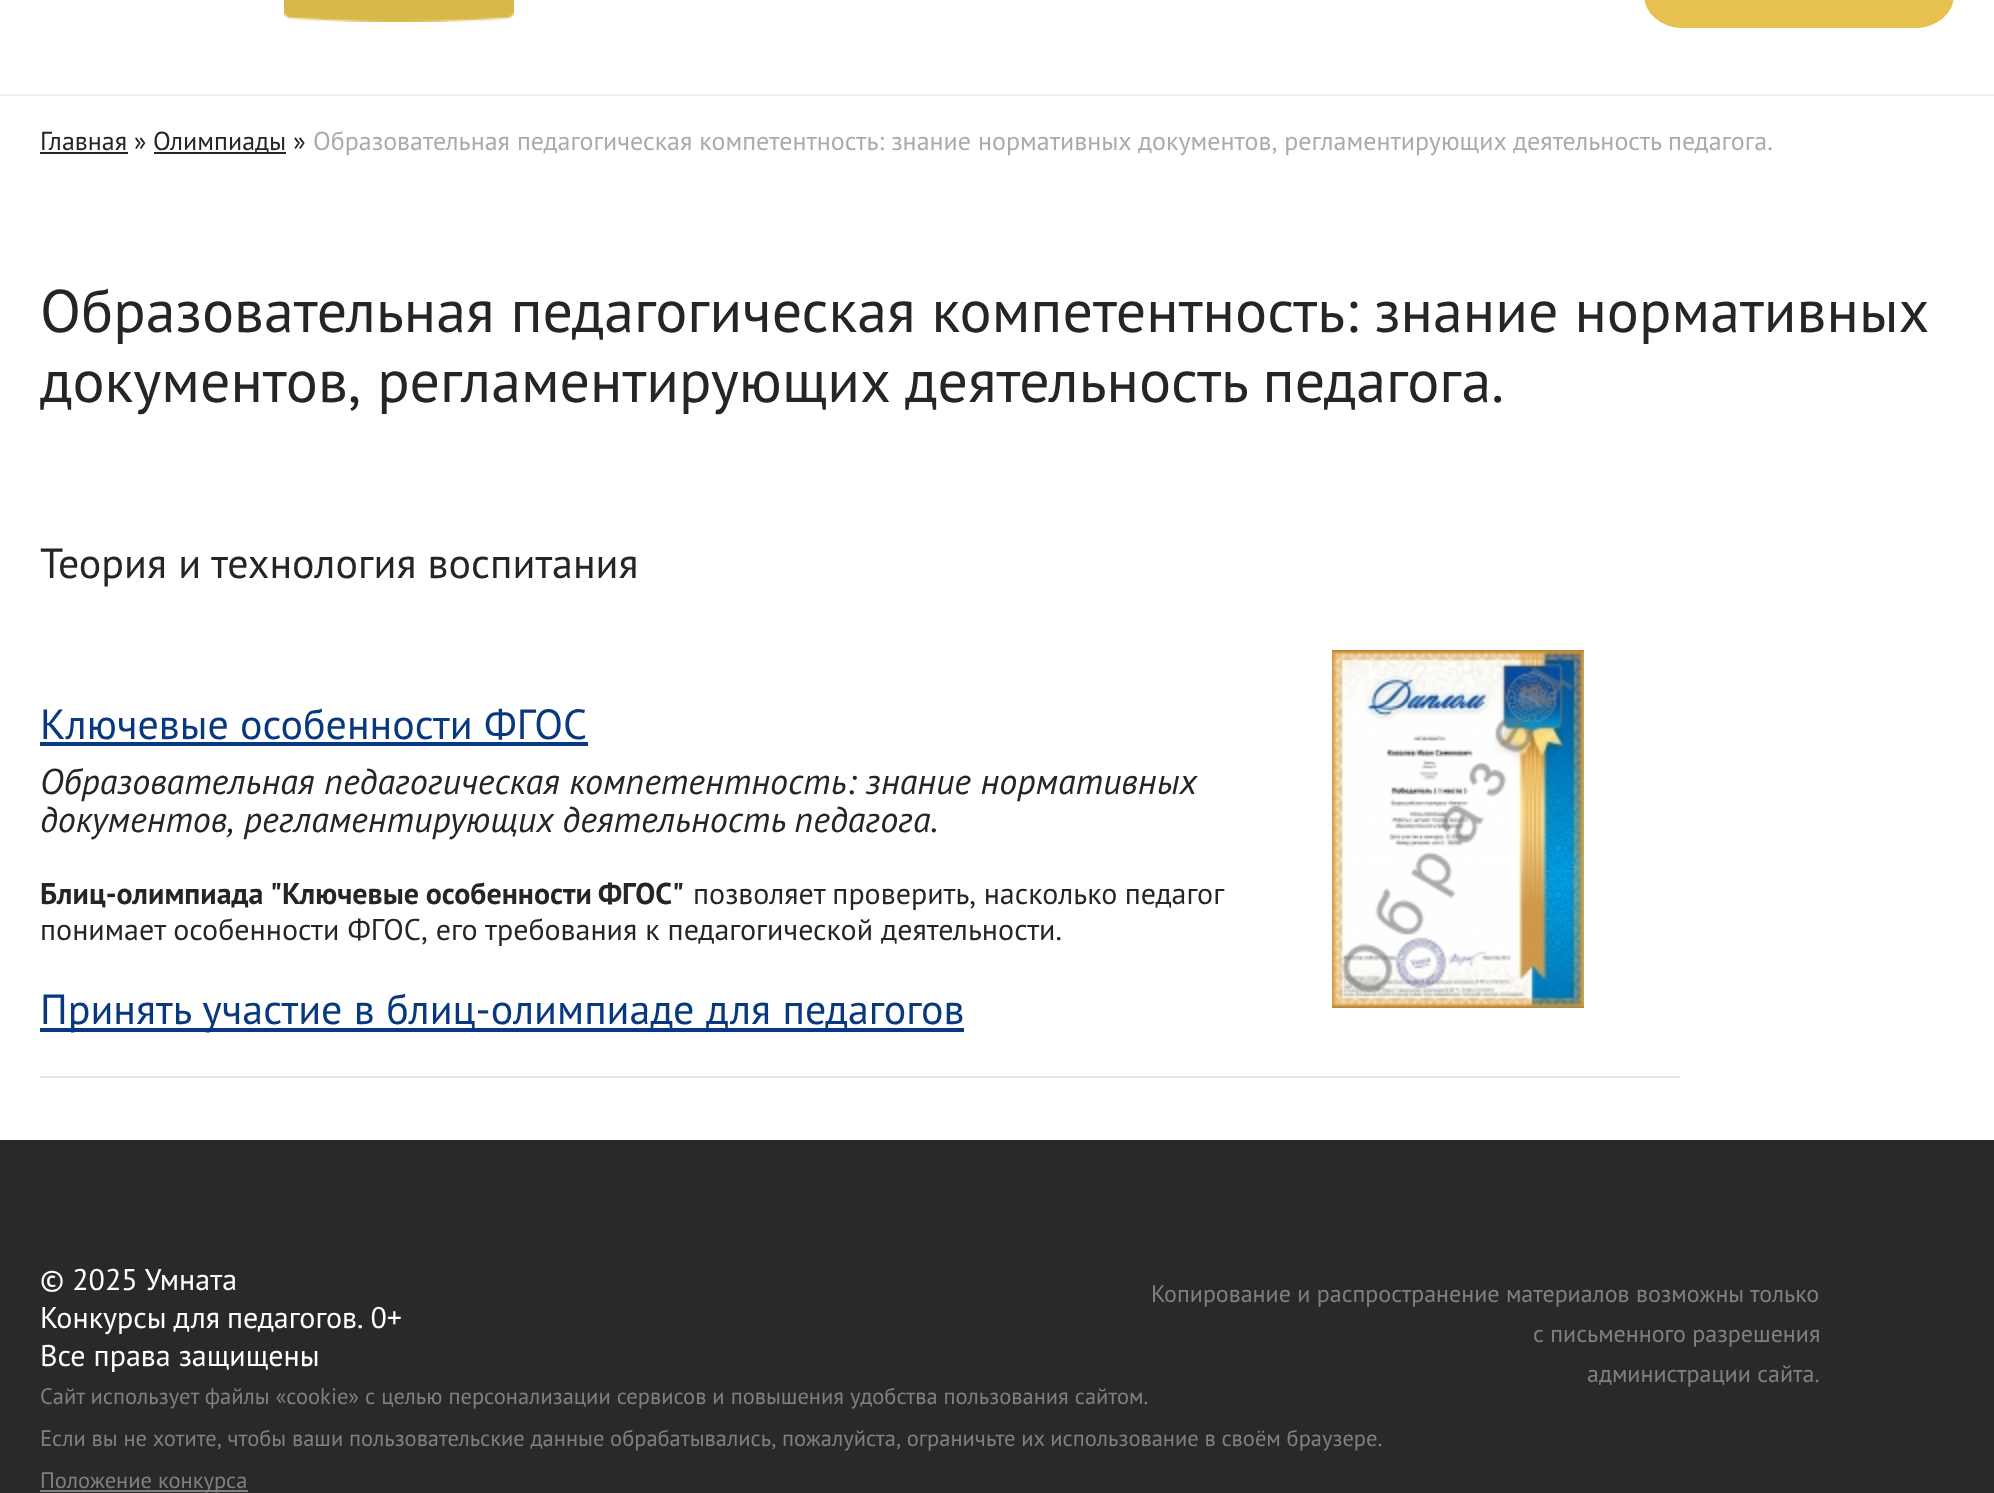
<svg xmlns="http://www.w3.org/2000/svg" width="1994" height="1493" viewBox="0 0 1994 1493">
  <style>
    .t1 { font: 26px PT Sans; fill: #252525; }
    .t2 { font: 26px PT Sans; fill: #ababab; }
    .t3 { font: 60px PT Sans; fill: #252525; }
    .t4 { font: 42px PT Sans; fill: #252525; }
    .t5 { font: 42px PT Sans; fill: #08387f; }
    .t6 { font: italic 36px PT Sans; fill: #252525; }
    .t7 { font: bold 30px PT Sans; fill: #252525; }
    .t8 { font: 30px PT Sans; fill: #252525; }
    .t9 { font: 30px PT Sans; fill: #fff; }
    .t10 { font: 22.5px PT Sans; fill: #808080; }
    .t11 { font: 24px PT Sans; fill: #808080; }
  </style>
  <rect width="100%" height="100%" fill="#fff"/>
  <rect x="0" y="94" width="1994" height="2" fill="#efefef"/>
  <image x="284" y="0" width="230" height="22" href="images/1.png"/>
  <rect x="1644" y="-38" width="310" height="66" rx="38" fill="#e6c150"/>
  <text x="40" y="150" class="t1">Главная »</text>
  <rect x="40" y="152" width="88" height="2" fill="#252525"/>
  <rect x="154" y="152" width="132" height="2" fill="#252525"/>
  <text x="153" y="150" class="t1">Олимпиады »</text>
  <text x="313" y="150" class="t2">Образовательная педагогическая компетентность: знание нормативных документов, регламентирующих деятельность педагога.</text>
  <text x="40" y="332" class="t3">Образовательная педагогическая компетентность: знание нормативных</text>
  <text x="40" y="402" word-spacing="-0.25" class="t3">документов, регламентирующих деятельность педагога.</text>
  <text x="40" y="578" class="t4">Теория и технология воспитания</text>
  <rect x="40" y="1076" width="1640" height="2" fill="#e4e4e4"/>
  <text x="40" y="739" class="t5">Ключевые особенности ФГОС</text>
  <rect x="40" y="742" width="548" height="4" fill="#08387f"/>
  <text x="40" y="794" class="t6">Образовательная педагогическая компетентность: знание нормативных</text>
  <text x="40" y="832" class="t6">документов, регламентирующих деятельность педагога.</text>
  <text x="40" y="904" word-spacing="-1" class="t7">Блиц-олимпиада "Ключевые особенности ФГОС"</text>
  <text x="693" y="904" word-spacing="-0.5" class="t8">позволяет проверить, насколько педагог</text>
  <text x="40" y="940" class="t8">понимает особенности ФГОС, его требования к педагогической деятельности.</text>
  <rect x="40" y="1028" width="924" height="4" fill="#08387f"/>
  <text x="40" y="1024" word-spacing="0.25" class="t5">Принять участие в блиц-олимпиаде для педагогов</text>
  <image x="1332" y="650" width="252" height="358" href="images/2.png"/>
  <rect x="0" y="1140" width="1994" height="353" fill="#292929"/>
  <text x="40" y="1290" class="t9">© 2025 Умната</text>
  <text x="40" y="1328" word-spacing="-1" class="t9">Конкурсы для педагогов. 0+</text>
  <text x="40" y="1366" class="t9">Все права защищены</text>
  <text x="40" y="1404" class="t10">Сайт использует файлы «cookie» с целью персонализации сервисов и повышения удобства пользования сайтом.</text>
  <text x="40" y="1446" word-spacing="-0.25" class="t10">Если вы не хотите, чтобы ваши пользовательские данные обрабатывались, пожалуйста, ограничьте их использование в своём браузере.</text>
  <rect x="40" y="1490" width="208" height="2" fill="#808080"/>
  <text x="40" y="1488" class="t10">Положение конкурса</text>
  <text x="1151" y="1302" class="t11">Копирование и распространение материалов возможны только</text>
  <text x="1533" y="1342" class="t11">с письменного разрешения</text>
  <text x="1587" y="1382" class="t11">администрации сайта.</text>
</svg>
